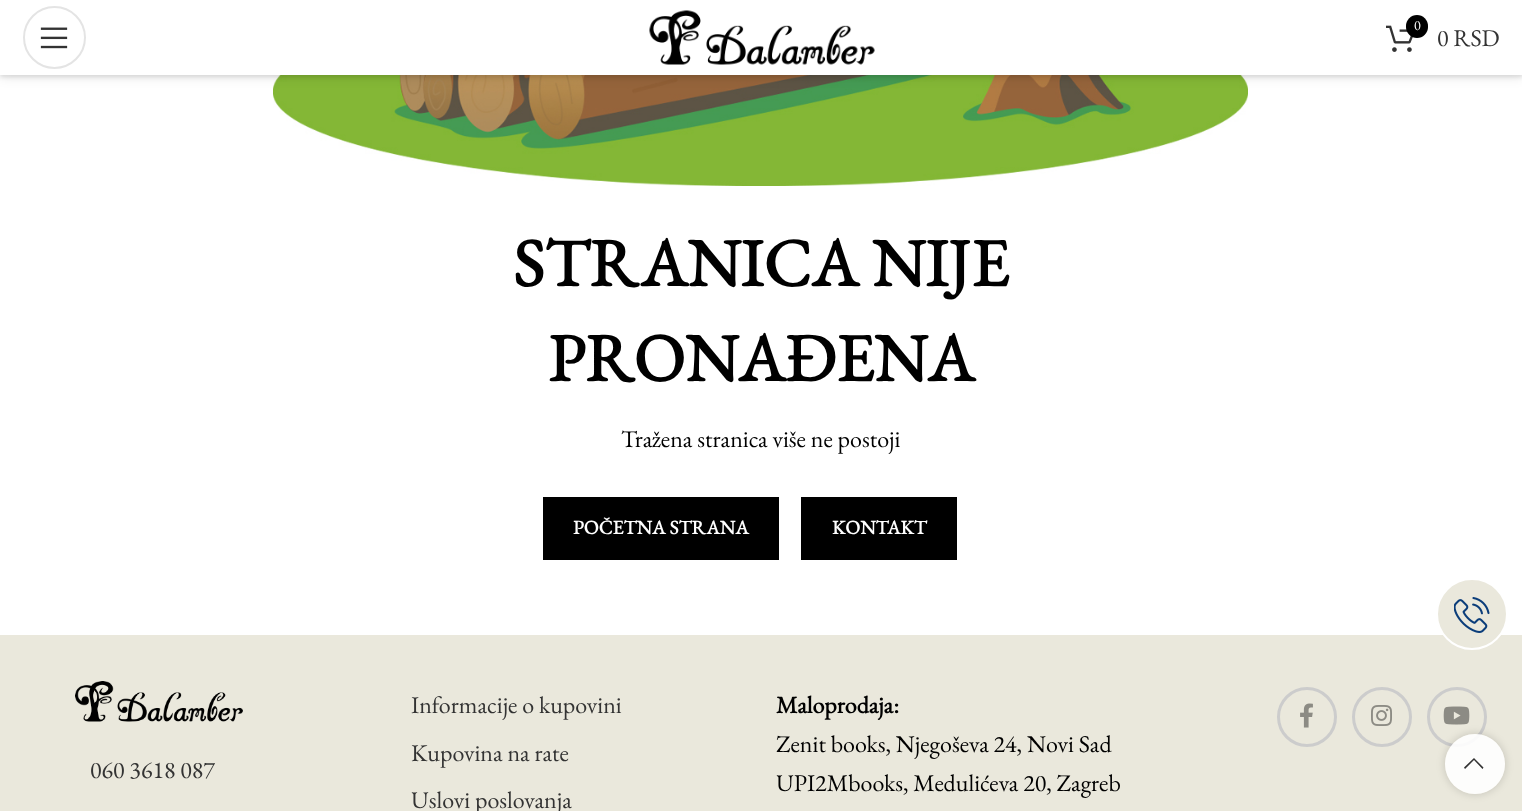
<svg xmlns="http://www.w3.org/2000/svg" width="1522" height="811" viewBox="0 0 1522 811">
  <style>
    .t1 { font: 14px EB Garamond; fill: #fff; }
    .t2 { font: 24px EB Garamond; fill: #333; }
    .t3 { font: bold 67.5px EB Garamond; fill: #000; }
    .t4 { font: 24px EB Garamond; fill: #000; }
    .t5 { font: bold 19.5px EB Garamond; fill: #fff; }
    .t6 { font: bold 24px EB Garamond; fill: #000; }
  </style>
  <defs>
    <clipPath id="clip1"><path d="M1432 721H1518V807H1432ZM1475 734C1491.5 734 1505 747.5 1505 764C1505 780.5 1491.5 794 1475 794C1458.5 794 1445 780.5 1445 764C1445 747.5 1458.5 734 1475 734Z" clip-rule="evenodd"/></clipPath>
  </defs>
  <rect width="100%" height="100%" fill="#fff"/>
  <image x="273" y="75" width="975" height="111" href="images/4.png"/>
  <rect x="0" y="2" width="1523" height="75" fill="#0000001a" filter="blur(2px)"/>
  <rect x="0" y="2" width="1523" height="75" fill="#0000001a" filter="blur(6px)"/>
  <rect x="0" y="0" width="1522" height="75" fill="#fff"/>
  <circle cx="54.5" cy="37.5" r="30.5" fill="none" stroke="#e4e4e4" stroke-width="2"/>
  <image x="40" y="27" width="28" height="22" href="images/1.png"/>
  <image x="649" y="10" width="226" height="55" href="images/2.png"/>
  <image x="1386" y="25" width="27" height="27" href="images/3.png"/>
  <rect x="1406" y="15" width="22" height="23" rx="11" fill="#000"/>
  <text x="1414" y="30" class="t1">0</text>
  <text x="1437" y="46" class="t2">0 RSD</text>
  <text x="513" y="286" class="t3">STRANICA NIJE</text>
  <text x="548" y="381" class="t3">PRONAĐENA</text>
  <text x="621" y="447" class="t4">Tražena stranica više ne postoji</text>
  <rect x="543" y="497" width="236" height="63" fill="#000"/>
  <text x="573" y="534" class="t5">POČETNA STRANA</text>
  <rect x="801" y="497" width="156" height="63" fill="#000"/>
  <text x="832" y="534" class="t5">KONTAKT</text>
  <rect x="0" y="635" width="1522" height="176" fill="#eae8dc"/>
  <circle cx="1472" cy="614" r="35" fill="#eae8dc" stroke="#fff" stroke-width="2"/>
  <image x="1454" y="597" width="36" height="36" href="images/5.png"/>
  <image x="75" y="681" width="168" height="41" href="images/6.png"/>
  <text x="90" y="778" class="t2">060 3618 087</text>
  <text x="411" y="713" class="t2">Informacije o kupovini</text>
  <text x="411" y="761" class="t2">Kupovina na rate</text>
  <text x="411" y="808" class="t2">Uslovi poslovanja</text>
  <text x="776" y="713" class="t6">Maloprodaja:</text>
  <text x="776" y="752" class="t4">Zenit books, Njegoševa 24, Novi Sad</text>
  <text x="776" y="791" class="t4">UPI2Mbooks, Medulićeva 20, Zagreb</text>
  <circle cx="1307" cy="717" r="28.5" fill="none" stroke="#ccc" stroke-width="3"/>
  <image x="1300" y="703" width="13" height="25" href="images/7.png"/>
  <circle cx="1382" cy="717" r="28.5" fill="none" stroke="#ccc" stroke-width="3"/>
  <image x="1371" y="705" width="21" height="21" href="images/8.png"/>
  <circle cx="1457" cy="717" r="28.5" fill="none" stroke="#ccc" stroke-width="3"/>
  <image x="1443" y="706" width="27" height="19" href="images/9.png"/>
  <g clip-path="url(#clip1)">
    <rect x="1445" y="734" width="60" height="60" rx="30" fill="#0000002b" filter="blur(4px)"/>
  </g>
  <circle cx="1475" cy="764" r="30" fill="#ffffffe6"/>
  <path d="M1482.5 769L1483.5 767.5L1474 758L1464 767.5L1465 769L1474 760Z" fill="#333"/>
</svg>
